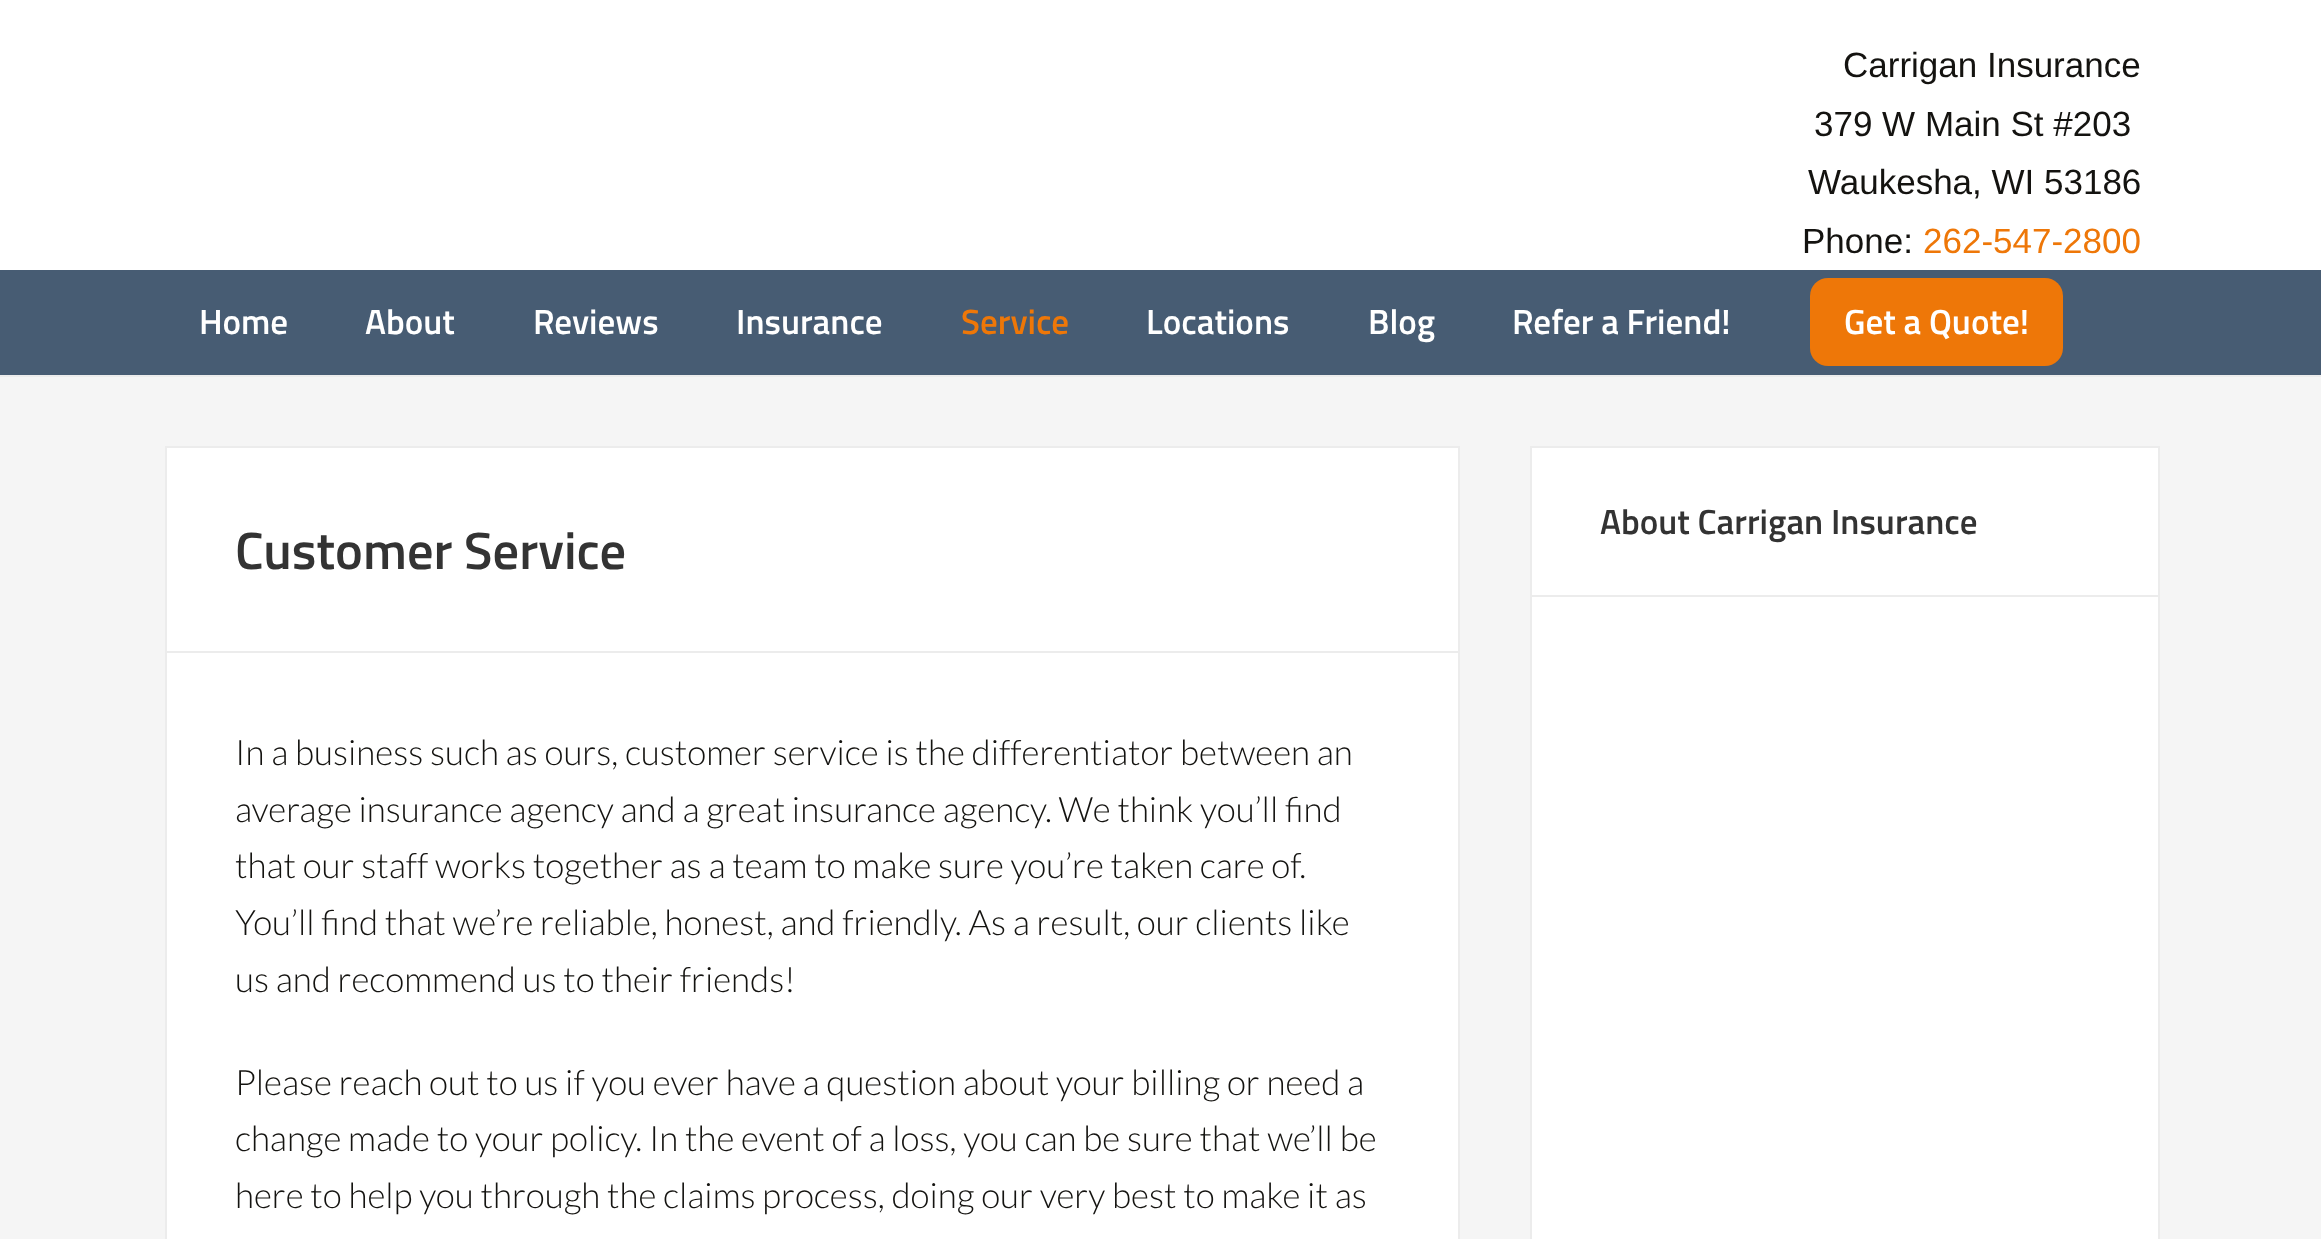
<svg xmlns="http://www.w3.org/2000/svg" width="2321" height="1239" viewBox="0 0 2321 1239">
  <style>
    .t1 { font: 35px Liberation Sans; fill: #141310; }
    .t2 { font: 35px Liberation Sans; fill: #ee7708; }
    .t3 { font: 600 35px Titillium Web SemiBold; fill: #fff; }
    .t4 { font: 600 35px Titillium Web SemiBold; fill: #ee7708; }
    .t5 { font: 600 35px Titillium Web SemiBold; fill: #333; }
    .t6 { font: 600 52.5px Titillium Web SemiBold; fill: #333; }
    .t7 { font: 300 35px Lato; fill: #141310; }
  </style>
  <rect width="100%" height="100%" fill="#fff"/>
  <text x="1843" y="77" class="t1">Carrigan Insurance</text>
  <text x="1814" y="136" class="t1">379 W Main St #203</text>
  <text x="1808" y="194" class="t1">Waukesha, WI 53186</text>
  <text x="1802" y="253" class="t1">Phone:</text>
  <text x="1923" y="253" class="t2">262-547-2800</text>
  <rect x="0" y="270" width="2321" height="105" fill="#475c73"/>
  <text x="199" y="334" class="t3">Home</text>
  <text x="365" y="334" class="t3">About</text>
  <text x="533" y="334" class="t3">Reviews</text>
  <text x="736" y="334" class="t3">Insurance</text>
  <text x="961" y="334" class="t4">Service</text>
  <text x="1146" y="334" class="t3">Locations</text>
  <text x="1368" y="334" class="t3">Blog</text>
  <text x="1512" y="334" class="t3">Refer a Friend!</text>
  <rect x="1810" y="278" width="253" height="88" rx="18" fill="#ee7708"/>
  <text x="1844" y="334" class="t3">Get a Quote!</text>
  <rect x="0" y="377" width="2321" height="862" fill="#f5f5f5"/>
  <rect x="0" y="375" width="2321" height="2" fill="#ececec"/>
  <rect x="1532" y="448" width="626" height="791" fill="#fff"/>
  <rect x="1530" y="446" width="630" height="2" fill="#ececec"/>
  <rect x="2158" y="446" width="2" height="793" fill="#ececec"/>
  <rect x="1530" y="446" width="2" height="793" fill="#ececec"/>
  <rect x="1531" y="595" width="627" height="2" fill="#ececec"/>
  <text x="1600" y="534" class="t5">About Carrigan Insurance</text>
  <rect x="166" y="447" width="1293" height="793" fill="#fff" stroke="#ececec" stroke-width="2"/>
  <rect x="166" y="651" width="1292" height="2" fill="#ececec"/>
  <text x="235" y="569" class="t6">Customer Service</text>
  <text x="235" y="765" class="t7">In a business such as ours, customer service is the differentiator between an</text>
  <text x="235" y="822" class="t7">average insurance agency and a great insurance agency. We think you’ll find</text>
  <text x="235" y="878" class="t7">that our staff works together as a team to make sure you’re taken care of.</text>
  <text x="235" y="935" class="t7">You’ll find that we’re reliable, honest, and friendly. As a result, our clients like</text>
  <text x="235" y="992" class="t7">us and recommend us to their friends!</text>
  <text x="235" y="1095" class="t7">Please reach out to us if you ever have a question about your billing or need a</text>
  <text x="235" y="1151" class="t7">change made to your policy. In the event of a loss, you can be sure that we’ll be</text>
  <text x="235" y="1208" class="t7">here to help you through the claims process, doing our very best to make it as</text>
</svg>
